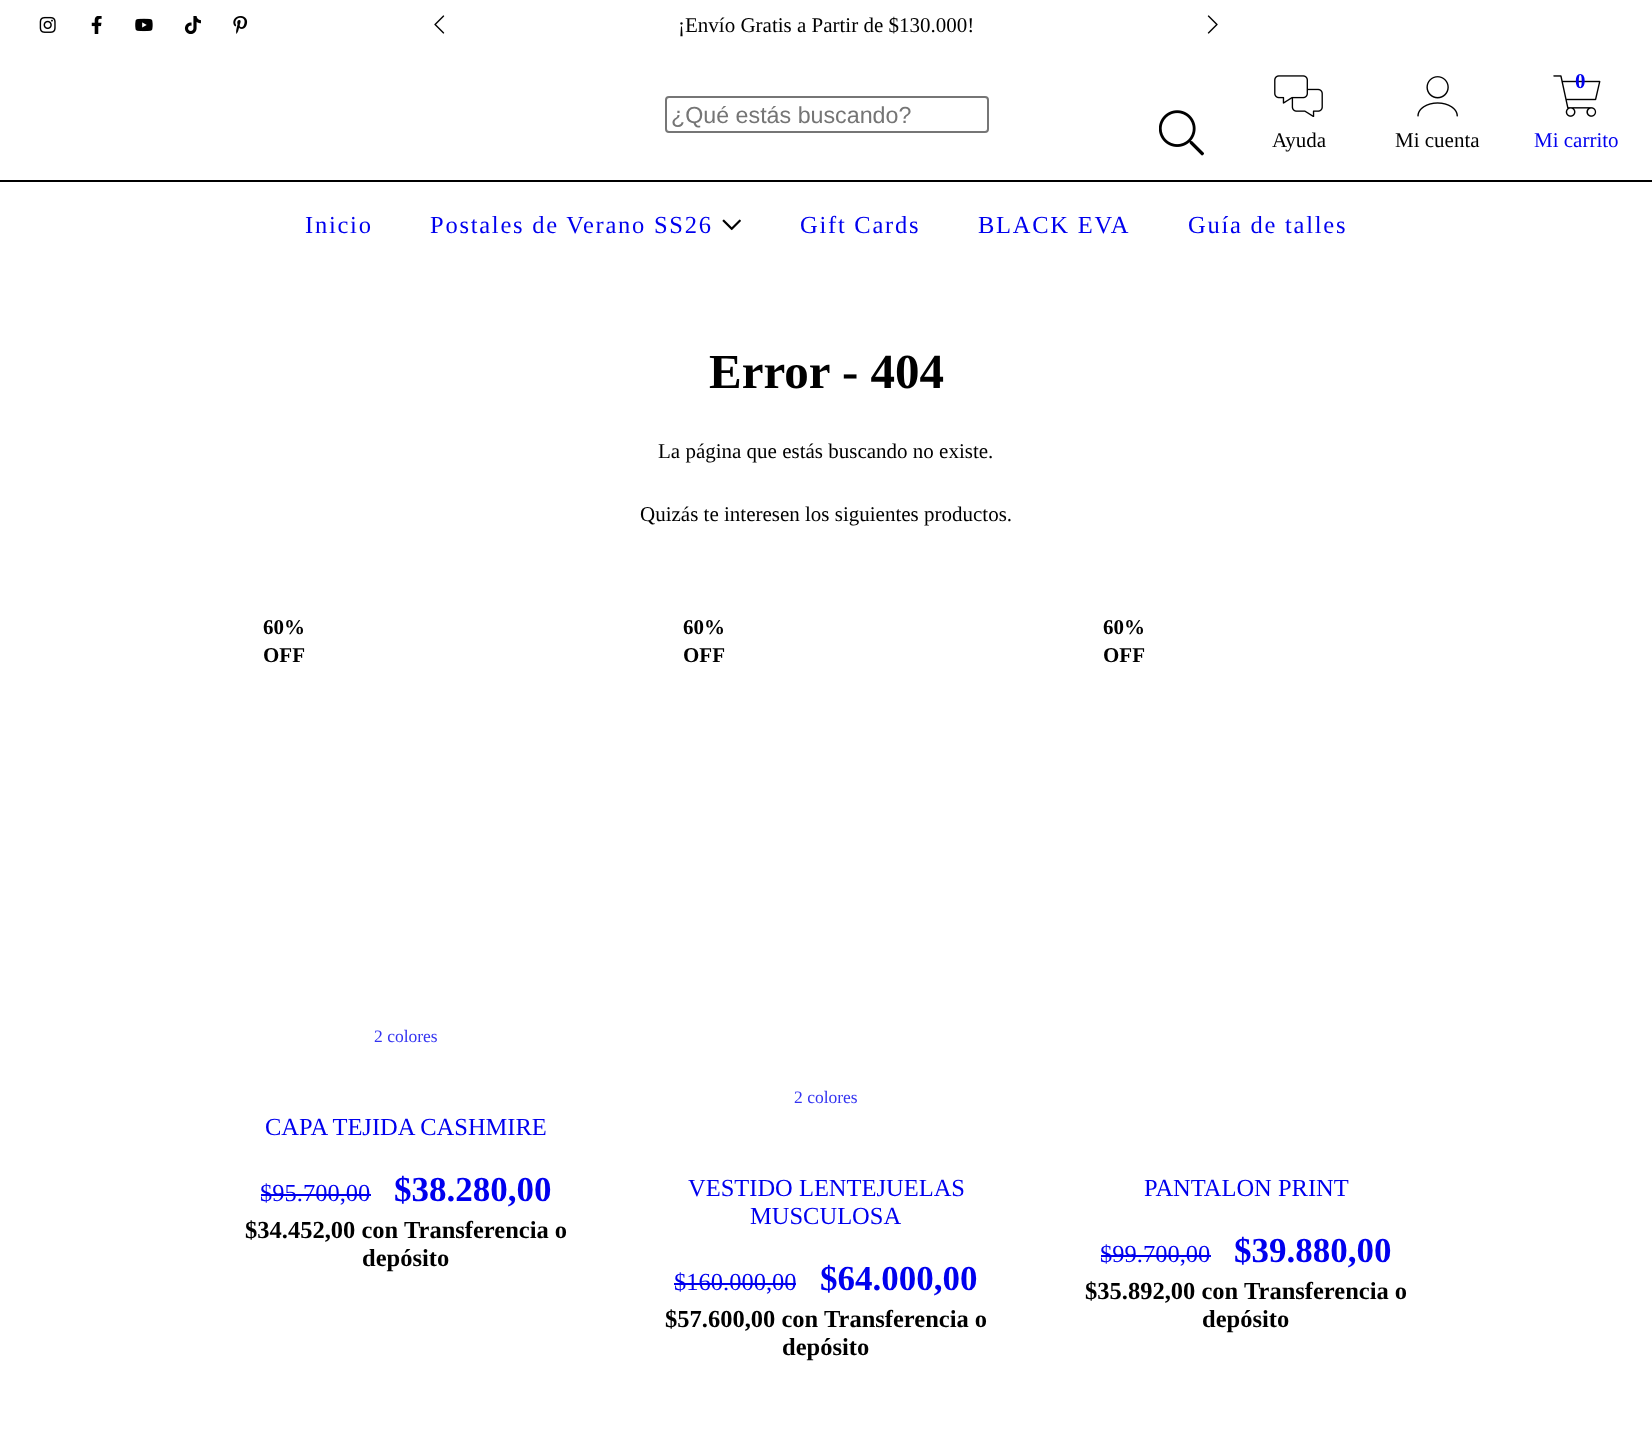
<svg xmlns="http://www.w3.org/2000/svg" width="1652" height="1430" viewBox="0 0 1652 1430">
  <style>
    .t1 { font: 21px Liberation Serif; fill: #000; }
    .t2 { font: 23.25px Liberation Sans; fill: #757575; }
    .t3 { font: bold 21px Liberation Serif; fill: #00e; }
    .t4 { font: 21px Liberation Serif; fill: #00e; }
    .t5 { font: 24.5px Liberation Serif; letter-spacing: 1.75px; fill: #00e; }
    .t6 { font: bold 49px Liberation Serif; fill: #000; }
    .t7 { font: bold 21px Liberation Serif; fill: #000; }
    .t8 { font: 17.5px Liberation Serif; fill: #3333f1; }
    .t9 { font: 24.5px Liberation Serif; fill: #00e; }
    .t10 { font: bold 35px Liberation Serif; fill: #00e; }
    .t11 { font: bold 24.5px Liberation Serif; fill: #000; }
  </style>
  <rect width="100%" height="100%" fill="#fff"/>
  <image x="39" y="16" width="17" height="17" href="images/1.png"/>
  <image x="91" y="16" width="11" height="18" href="images/2.png"/>
  <image x="135" y="18" width="18" height="14" href="images/3.png"/>
  <image x="184" y="16" width="17" height="18" href="images/4.png"/>
  <image x="233" y="16" width="15" height="18" href="images/5.png"/>
  <image x="434" y="15" width="11" height="19" href="images/6.png"/>
  <text x="678" y="32" class="t1">¡Envío Gratis a Partir de $130.000!</text>
  <image x="1207" y="15" width="11" height="19" href="images/7.png"/>
  <rect x="666" y="97" width="322" height="35" rx="3" fill="none" stroke="#767676" stroke-width="2"/>
  <text x="671" y="123" class="t2">¿Qué estás buscando?</text>
  <image x="1159" y="110" width="45" height="46" href="images/8.png"/>
  <image x="1274" y="75" width="49" height="42" href="images/9.png"/>
  <text x="1272" y="147" class="t1">Ayuda</text>
  <image x="1417" y="76" width="41" height="41" href="images/10.png"/>
  <text x="1395" y="147" class="t1">Mi cuenta</text>
  <image x="1553" y="75" width="48" height="42" href="images/11.png"/>
  <text x="1575" y="88" class="t3">0</text>
  <text x="1534" y="147" class="t4">Mi carrito</text>
  <rect x="0" y="180" width="1652" height="2" fill="#000"/>
  <text x="305" y="233" class="t5">Inicio</text>
  <text x="430" y="233" class="t5">Postales de Verano SS26</text>
  <image x="722" y="219" width="19" height="12" href="images/12.png"/>
  <text x="800" y="233" class="t5">Gift Cards</text>
  <text x="978" y="233" class="t5">BLACK EVA</text>
  <text x="1188" y="233" class="t5">Guía de talles</text>
  <text x="709" y="388" class="t6">Error - 404</text>
  <text x="658" y="458" class="t1">La página que estás buscando no existe.</text>
  <text x="640" y="521" class="t1">Quizás te interesen los siguientes productos.</text>
  <text x="263" y="634" class="t7">60%</text>
  <text x="263" y="662" class="t7">OFF</text>
  <text x="374" y="1042" class="t8">2 colores</text>
  <text x="265" y="1135" class="t9">CAPA TEJIDA CASHMIRE</text>
  <text x="260" y="1201" class="t9">$95.700,00</text>
  <rect x="261" y="1194" width="110" height="2" fill="#00e"/>
  <text x="394" y="1201" class="t10">$38.280,00</text>
  <text x="245" y="1238" class="t11">$34.452,00 con</text>
  <text x="404" y="1238" class="t11">Transferencia o</text>
  <text x="362" y="1266" class="t11">depósito</text>
  <text x="683" y="634" class="t7">60%</text>
  <text x="683" y="662" class="t7">OFF</text>
  <text x="794" y="1103" class="t8">2 colores</text>
  <text x="688" y="1196" class="t9">VESTIDO LENTEJUELAS</text>
  <text x="750" y="1224" class="t9">MUSCULOSA</text>
  <text x="674" y="1290" class="t9">$160.000,00</text>
  <rect x="674" y="1283" width="122" height="2" fill="#00e"/>
  <text x="820" y="1290" class="t10">$64.000,00</text>
  <text x="665" y="1327" class="t11">$57.600,00 con</text>
  <text x="824" y="1327" class="t11">Transferencia o</text>
  <text x="782" y="1355" class="t11">depósito</text>
  <text x="1103" y="634" class="t7">60%</text>
  <text x="1103" y="662" class="t7">OFF</text>
  <text x="1144" y="1196" class="t9">PANTALON PRINT</text>
  <text x="1100" y="1262" class="t9">$99.700,00</text>
  <rect x="1101" y="1255" width="110" height="2" fill="#00e"/>
  <text x="1234" y="1262" class="t10">$39.880,00</text>
  <text x="1085" y="1299" class="t11">$35.892,00 con</text>
  <text x="1244" y="1299" class="t11">Transferencia o</text>
  <text x="1202" y="1327" class="t11">depósito</text>
</svg>
